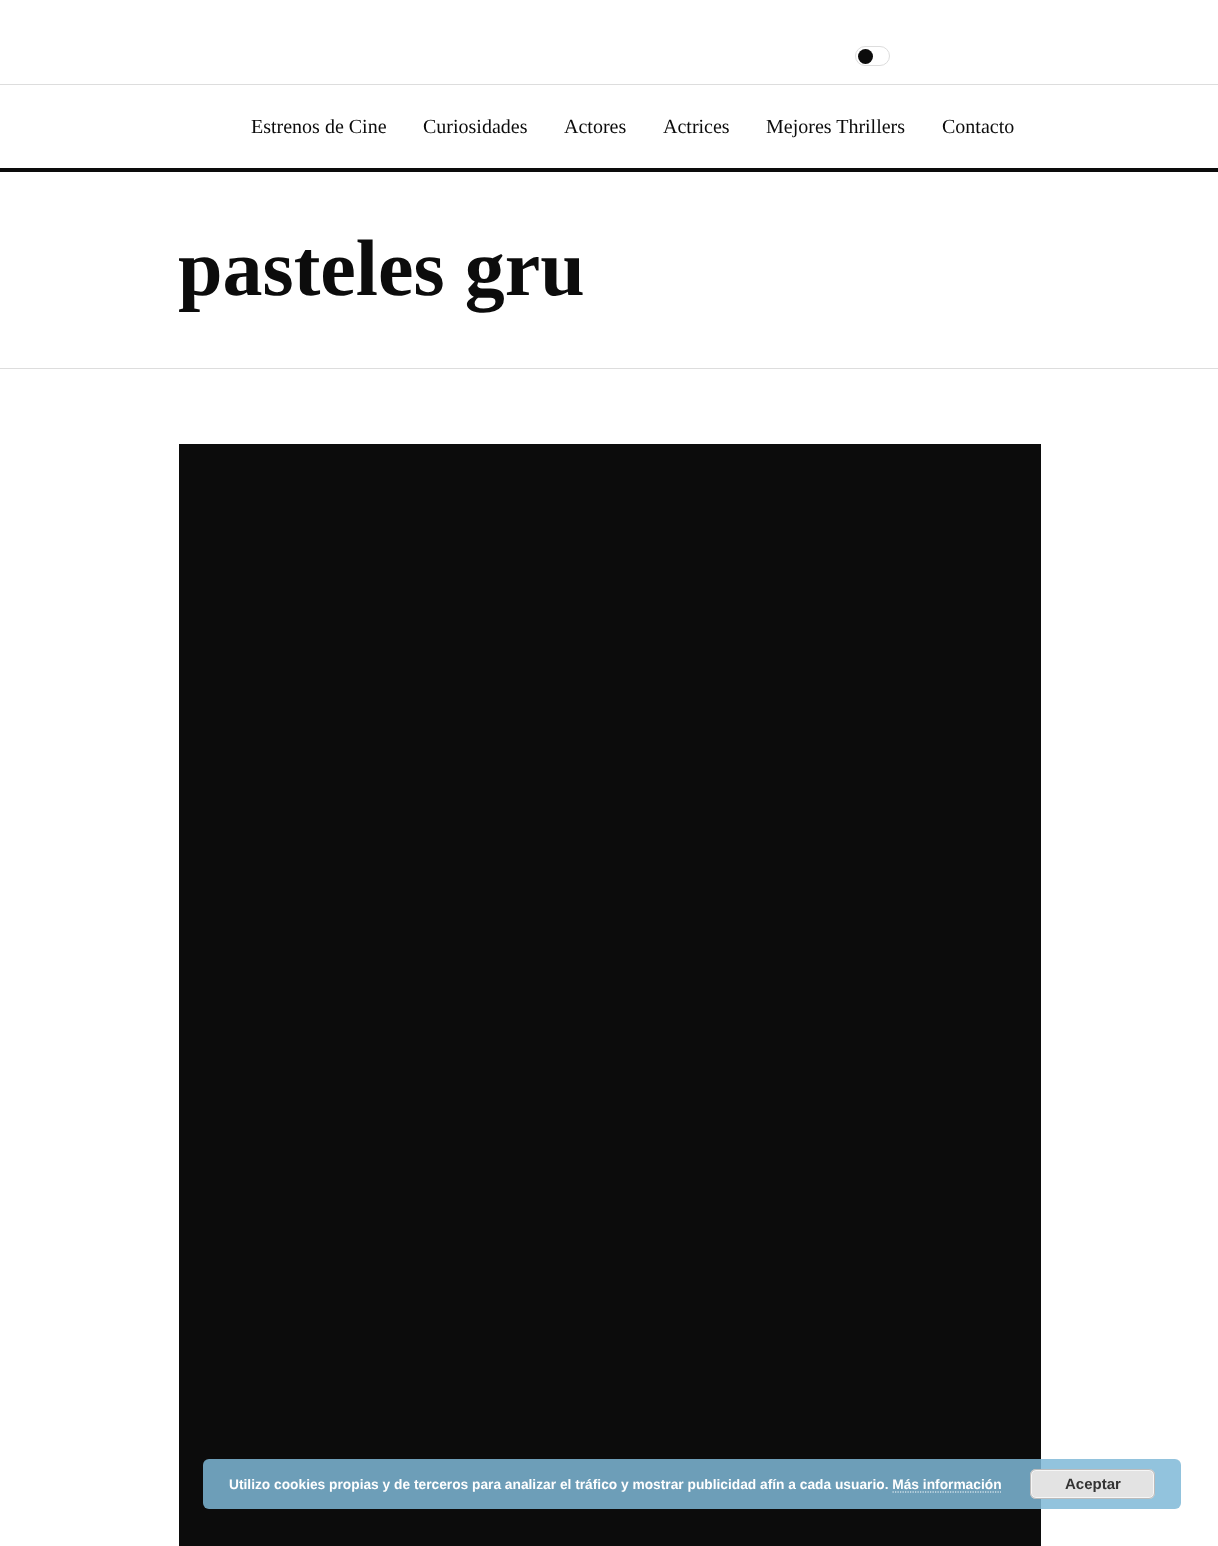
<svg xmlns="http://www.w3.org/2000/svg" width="1218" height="1546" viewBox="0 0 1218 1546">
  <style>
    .t1 { font: 20px Liberation Serif; fill: #0c0c0c; }
    .t2 { font: bold 80px Liberation Serif; fill: #0c0c0c; }
    .t3 { font: bold 13.75px Liberation Sans; fill: #fff; }
    .t4 { font: bold 15px Liberation Sans; fill: #333; }
  </style>
  <rect width="100%" height="100%" fill="#fff"/>
  <rect x="0" y="84" width="1218" height="1" fill="#ddd"/>
  <rect x="855.5" y="46.5" width="34" height="19" rx="9.5" fill="none" stroke="#ddd"/>
  <circle cx="865.5" cy="56.5" r="7.5" fill="#0c0c0c"/>
  <rect x="0" y="168" width="1218" height="4" fill="#0c0c0c"/>
  <text x="251" y="133" class="t1">Estrenos de Cine</text>
  <text x="423" y="133" class="t1">Curiosidades</text>
  <text x="564" y="133" class="t1">Actores</text>
  <text x="663" y="133" class="t1">Actrices</text>
  <text x="766" y="133" class="t1">Mejores Thrillers</text>
  <text x="942" y="133" class="t1">Contacto</text>
  <rect x="0" y="368" width="1218" height="1" fill="#ddd"/>
  <text x="178" y="295" class="t2">pasteles gru</text>
  <rect x="179" y="444" width="862" height="1102" fill="#0c0c0c"/>
  <rect x="203" y="1459" width="978" height="50" rx="6" fill="#7fb9d7d9"/>
  <text x="229" y="1489" class="t3">Utilizo cookies propias y de terceros para analizar el tráfico y mostrar publicidad afín a cada usuario. Más información</text>
  <rect x="1030" y="1469" width="125" height="30" rx="6" fill="#e3e3e3"/>
  <rect x="1031.5" y="1470.5" width="122" height="27" rx="4.5" fill="none" stroke="#f6f6f6"/>
  <rect x="1030.5" y="1469.5" width="124" height="29" rx="5.5" fill="none" stroke="#bbb"/>
  <text x="1065" y="1489" class="t4">Aceptar</text>
  <path d="M892.5 1492H1001" fill="none" stroke="#fff" stroke-width="1.2" stroke-dasharray="1.25 1.25"/>
</svg>
